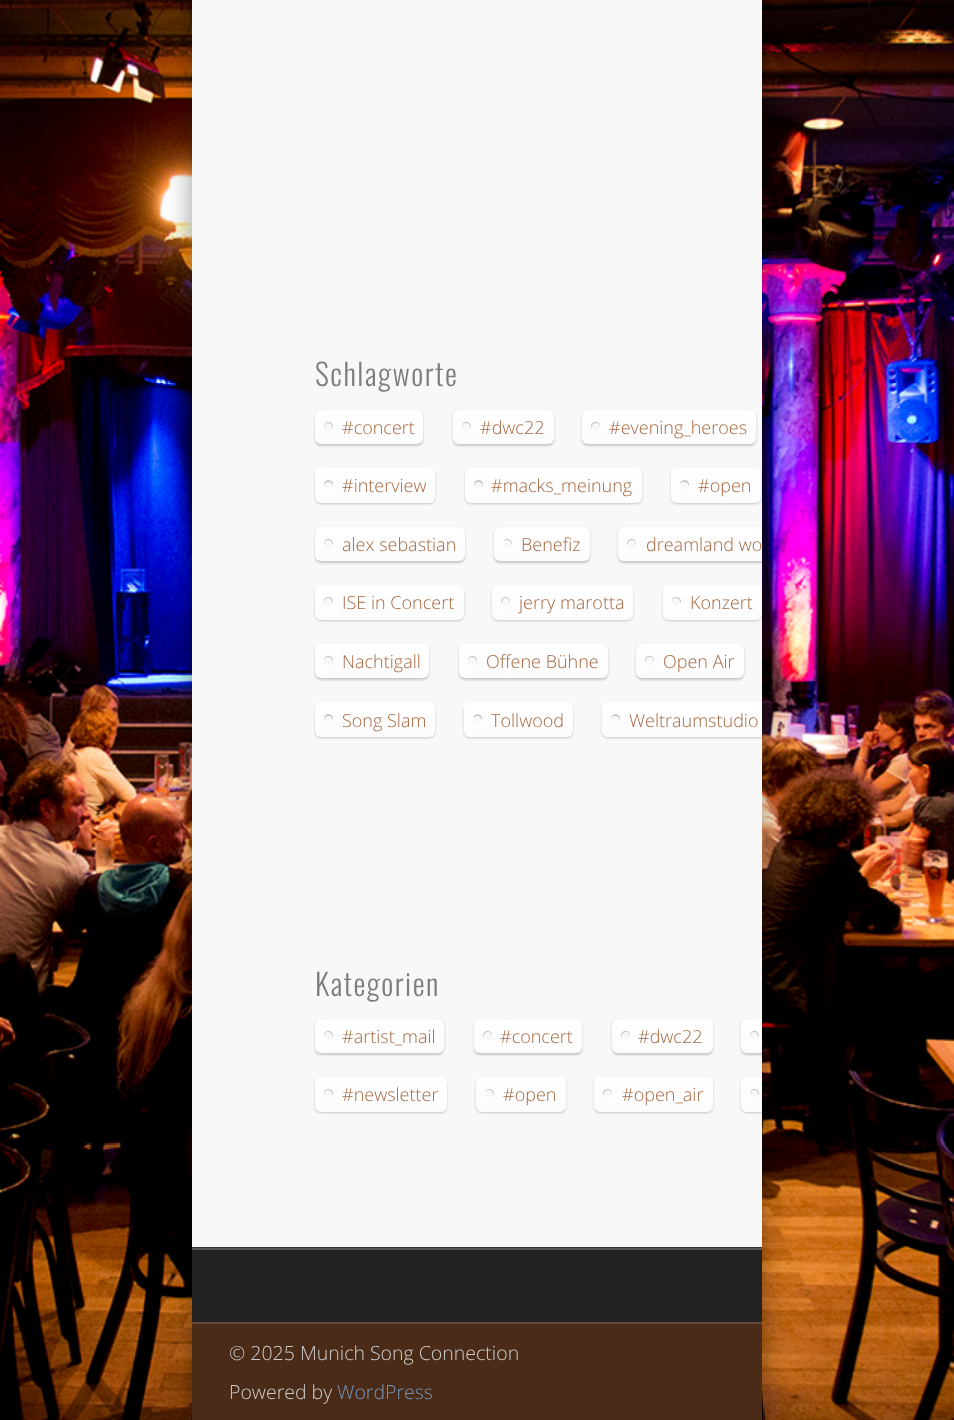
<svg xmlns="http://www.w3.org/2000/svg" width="954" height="1420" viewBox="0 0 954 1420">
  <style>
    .t1 { font: 300 30px Oswald; letter-spacing: 1.5px; fill: #7d7d7d; }
    .t2 { font: 300 18px Open Sans; fill: #a56840; }
    .t3 { font: 300 19.5px Open Sans; fill: #ccc; }
    .t4 { font: 300 19.5px Open Sans; fill: #7597b9; }
  </style>
  <defs>
    <linearGradient id="g1" gradientUnits="userSpaceOnUse" x1="369" y1="410" x2="369" y2="444"><stop offset="0" stop-color="#fff"/><stop offset="1" stop-color="#fcfcfc"/></linearGradient>
    <linearGradient id="g2" gradientUnits="userSpaceOnUse" x1="503" y1="410" x2="503" y2="444"><stop offset="0" stop-color="#fff"/><stop offset="1" stop-color="#fcfcfc"/></linearGradient>
    <linearGradient id="g3" gradientUnits="userSpaceOnUse" x1="669" y1="410" x2="669" y2="444"><stop offset="0" stop-color="#fff"/><stop offset="1" stop-color="#fcfcfc"/></linearGradient>
    <linearGradient id="g4" gradientUnits="userSpaceOnUse" x1="375" y1="468" x2="375" y2="503"><stop offset="0" stop-color="#fff"/><stop offset="1" stop-color="#fcfcfc"/></linearGradient>
    <linearGradient id="g5" gradientUnits="userSpaceOnUse" x1="554" y1="468" x2="554" y2="503"><stop offset="0" stop-color="#fff"/><stop offset="1" stop-color="#fcfcfc"/></linearGradient>
    <linearGradient id="g6" gradientUnits="userSpaceOnUse" x1="716" y1="468" x2="716" y2="503"><stop offset="0" stop-color="#fff"/><stop offset="1" stop-color="#fcfcfc"/></linearGradient>
    <linearGradient id="g7" gradientUnits="userSpaceOnUse" x1="390" y1="527" x2="390" y2="561"><stop offset="0" stop-color="#fff"/><stop offset="1" stop-color="#fcfcfc"/></linearGradient>
    <linearGradient id="g8" gradientUnits="userSpaceOnUse" x1="542" y1="527" x2="542" y2="561"><stop offset="0" stop-color="#fff"/><stop offset="1" stop-color="#fcfcfc"/></linearGradient>
    <clipPath id="clip1"><rect x="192" y="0" width="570" height="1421"/></clipPath>
    <linearGradient id="g9" gradientUnits="userSpaceOnUse" x1="767" y1="527" x2="767" y2="561"><stop offset="0" stop-color="#fff"/><stop offset="1" stop-color="#fcfcfc"/></linearGradient>
    <linearGradient id="g10" gradientUnits="userSpaceOnUse" x1="389" y1="585" x2="389" y2="620"><stop offset="0" stop-color="#fff"/><stop offset="1" stop-color="#fcfcfc"/></linearGradient>
    <linearGradient id="g11" gradientUnits="userSpaceOnUse" x1="563" y1="585" x2="563" y2="620"><stop offset="0" stop-color="#fff"/><stop offset="1" stop-color="#fcfcfc"/></linearGradient>
    <linearGradient id="g12" gradientUnits="userSpaceOnUse" x1="713" y1="585" x2="713" y2="620"><stop offset="0" stop-color="#fff"/><stop offset="1" stop-color="#fcfcfc"/></linearGradient>
    <linearGradient id="g13" gradientUnits="userSpaceOnUse" x1="372" y1="644" x2="372" y2="678"><stop offset="0" stop-color="#fff"/><stop offset="1" stop-color="#fcfcfc"/></linearGradient>
    <linearGradient id="g14" gradientUnits="userSpaceOnUse" x1="533" y1="644" x2="533" y2="678"><stop offset="0" stop-color="#fff"/><stop offset="1" stop-color="#fcfcfc"/></linearGradient>
    <linearGradient id="g15" gradientUnits="userSpaceOnUse" x1="690" y1="644" x2="690" y2="678"><stop offset="0" stop-color="#fff"/><stop offset="1" stop-color="#fcfcfc"/></linearGradient>
    <linearGradient id="g16" gradientUnits="userSpaceOnUse" x1="375" y1="702" x2="375" y2="737"><stop offset="0" stop-color="#fff"/><stop offset="1" stop-color="#fcfcfc"/></linearGradient>
    <linearGradient id="g17" gradientUnits="userSpaceOnUse" x1="518" y1="702" x2="518" y2="737"><stop offset="0" stop-color="#fff"/><stop offset="1" stop-color="#fcfcfc"/></linearGradient>
    <linearGradient id="g18" gradientUnits="userSpaceOnUse" x1="689" y1="702" x2="689" y2="737"><stop offset="0" stop-color="#fff"/><stop offset="1" stop-color="#fcfcfc"/></linearGradient>
    <linearGradient id="g19" gradientUnits="userSpaceOnUse" x1="380" y1="1019" x2="380" y2="1053"><stop offset="0" stop-color="#fff"/><stop offset="1" stop-color="#fcfcfc"/></linearGradient>
    <linearGradient id="g20" gradientUnits="userSpaceOnUse" x1="528" y1="1019" x2="528" y2="1053"><stop offset="0" stop-color="#fff"/><stop offset="1" stop-color="#fcfcfc"/></linearGradient>
    <linearGradient id="g21" gradientUnits="userSpaceOnUse" x1="662" y1="1019" x2="662" y2="1053"><stop offset="0" stop-color="#fff"/><stop offset="1" stop-color="#fcfcfc"/></linearGradient>
    <linearGradient id="g22" gradientUnits="userSpaceOnUse" x1="828" y1="1019" x2="828" y2="1053"><stop offset="0" stop-color="#fff"/><stop offset="1" stop-color="#fcfcfc"/></linearGradient>
    <linearGradient id="g23" gradientUnits="userSpaceOnUse" x1="381" y1="1077" x2="381" y2="1112"><stop offset="0" stop-color="#fff"/><stop offset="1" stop-color="#fcfcfc"/></linearGradient>
    <linearGradient id="g24" gradientUnits="userSpaceOnUse" x1="521" y1="1077" x2="521" y2="1112"><stop offset="0" stop-color="#fff"/><stop offset="1" stop-color="#fcfcfc"/></linearGradient>
    <linearGradient id="g25" gradientUnits="userSpaceOnUse" x1="653" y1="1077" x2="653" y2="1112"><stop offset="0" stop-color="#fff"/><stop offset="1" stop-color="#fcfcfc"/></linearGradient>
    <linearGradient id="g26" gradientUnits="userSpaceOnUse" x1="834" y1="1077" x2="834" y2="1112"><stop offset="0" stop-color="#fff"/><stop offset="1" stop-color="#fcfcfc"/></linearGradient>
  </defs>
  <rect width="100%" height="100%" fill="#fff"/>
  <image x="0" y="0" width="954" height="1420" href="images/1.png"/>
  <rect x="192" y="-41" width="570" height="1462" fill="#00000066" filter="blur(13.5px)"/>
  <rect x="192" y="0" width="570" height="1247" fill="#f8f8f8"/>
  <text x="315" y="386" class="t1">Schlagworte</text>
  <rect x="315" y="411" width="108" height="35" rx="6" fill="#00000033" filter="blur(1px)"/>
  <rect x="315" y="410" width="108" height="34" rx="6" fill="url(#g1)"/>
  <circle cx="328.5" cy="426.5" r="4.5" fill="#f8f8f8"/>
  <path d="M328 423C331.5 423 333 426.5 332.5 429C335.5 423.5 327 418.5 324.5 424.5C324 426 324 427 324.5 428C324 425.5 325.5 423 328 423Z" fill="#00000033"/>
  <text x="342" y="434" class="t2">#concert</text>
  <rect x="453" y="411" width="101" height="35" rx="6" fill="#00000033" filter="blur(1px)"/>
  <rect x="453" y="410" width="101" height="34" rx="6" fill="url(#g2)"/>
  <circle cx="466.5" cy="426.5" r="4.5" fill="#f8f8f8"/>
  <path d="M466 423C469.5 423 471 426.5 470.5 429C473.5 423.5 465 418.5 462.5 424.5C462 426 462 427 462.5 428C462 425.5 463.5 423 466 423Z" fill="#00000033"/>
  <text x="480" y="434" class="t2">#dwc22</text>
  <rect x="582" y="411" width="174" height="35" rx="6" fill="#00000033" filter="blur(1px)"/>
  <rect x="582" y="410" width="174" height="34" rx="6" fill="url(#g3)"/>
  <circle cx="595.5" cy="426.5" r="4.5" fill="#f8f8f8"/>
  <path d="M596 423C598.5 423 600 425.5 599.5 428C600 427 600 426 599.5 424.5C597 418.5 588.5 423.5 591.5 429C591 426.5 592.5 423 596 423Z" fill="#00000033"/>
  <text x="609" y="434" class="t2">#evening_heroes</text>
  <rect x="315" y="470" width="120" height="34" rx="6" fill="#00000033" filter="blur(1px)"/>
  <rect x="315" y="468" width="120" height="35" rx="6" fill="url(#g4)"/>
  <circle cx="328.5" cy="484.5" r="4.5" fill="#f8f8f8"/>
  <path d="M328 482C331.5 482 333 484.5 332.5 486.5C335.5 481.5 327 477 324.5 482.5C324 484 324 485 324.5 486C324.5 484 325.5 482 328 482Z" fill="#00000033"/>
  <text x="342" y="492" class="t2">#interview</text>
  <rect x="465" y="470" width="177" height="34" rx="6" fill="#00000033" filter="blur(1px)"/>
  <rect x="465" y="468" width="177" height="35" rx="6" fill="url(#g5)"/>
  <circle cx="478.5" cy="484.5" r="4.5" fill="#f8f8f8"/>
  <path d="M478 482C481.5 482 483 484.5 482.5 486.5C485.5 481.5 477 477 474.5 482.5C474 484 474 485 474.5 486C474.5 484 475.5 482 478 482Z" fill="#00000033"/>
  <text x="491" y="492" class="t2">#macks_meinung</text>
  <rect x="671" y="470" width="90" height="34" rx="6" fill="#00000033" filter="blur(1px)"/>
  <rect x="671" y="468" width="90" height="35" rx="6" fill="url(#g6)"/>
  <circle cx="684.5" cy="484.5" r="4.5" fill="#f8f8f8"/>
  <path d="M684 482C687.5 482 689 484.5 688.5 486.5C692 480.5 681 477 680 484C680.5 483 682 482 684 482Z" fill="#00000033"/>
  <text x="698" y="492" class="t2">#open</text>
  <rect x="315" y="528" width="150" height="35" rx="6" fill="#00000033" filter="blur(1px)"/>
  <rect x="315" y="527" width="150" height="34" rx="6" fill="url(#g7)"/>
  <circle cx="328.5" cy="543.5" r="4.5" fill="#f8f8f8"/>
  <path d="M328 540C331.5 540 333 543.5 332.5 546C335.5 540.5 327 535.5 324.5 541.5C324 543 324 544 324.5 545C324 542.5 325.5 540 328 540Z" fill="#00000033"/>
  <text x="342" y="551" class="t2">alex sebastian</text>
  <rect x="494" y="528" width="96" height="35" rx="6" fill="#00000033" filter="blur(1px)"/>
  <rect x="494" y="527" width="96" height="34" rx="6" fill="url(#g8)"/>
  <circle cx="507.5" cy="543.5" r="4.5" fill="#f8f8f8"/>
  <path d="M507 540C510.5 540 512 543.5 511.5 546C514.5 540.5 506 536 503.5 541.5C504 540.5 505.5 540 507 540Z" fill="#00000033"/>
  <text x="521" y="551" class="t2">Benefiz</text>
  <g clip-path="url(#clip1)">
    <rect x="618" y="528" width="297" height="35" rx="6" fill="#00000033" filter="blur(1px)"/>
  </g>
  <path d="M624 527H762V561H624C620.5 561 618 558.5 618 555V533C618 529.5 620.5 527 624 527Z" fill="url(#g9)"/>
  <circle cx="631.5" cy="543.5" r="4.5" fill="#f8f8f8"/>
  <path d="M632 540C634.5 540 636 542.5 635.5 545C636 544 636 543 635.5 541.5C633 535.5 624.5 540.5 627.5 546C627 543.5 628.5 540 632 540Z" fill="#00000033"/>
  <text x="646" y="551" class="t2">dreamland wo</text>
  <rect x="315" y="587" width="149" height="34" rx="6" fill="#00000033" filter="blur(1px)"/>
  <rect x="315" y="585" width="149" height="35" rx="6" fill="url(#g10)"/>
  <circle cx="328.5" cy="601.5" r="4.5" fill="#f8f8f8"/>
  <path d="M328 598C331 598 332.5 601 332.5 603.5C335.5 598.5 327 594 324.5 599.5C324 601 324 602 324.5 603C324.5 600.5 325.5 598 328 598Z" fill="#00000033"/>
  <text x="342" y="609" class="t2">ISE in Concert</text>
  <rect x="492" y="587" width="141" height="34" rx="6" fill="#00000033" filter="blur(1px)"/>
  <rect x="492" y="585" width="141" height="35" rx="6" fill="url(#g11)"/>
  <circle cx="505.5" cy="601.5" r="4.5" fill="#f8f8f8"/>
  <path d="M506 598C508.5 598 509.5 600.5 509.5 603C510 602 510 601 509.5 599.5C507 594 498.5 598.5 501.5 603.5C501.5 601 503 598 506 598Z" fill="#00000033"/>
  <text x="519" y="609" class="t2">jerry marotta</text>
  <rect x="663" y="587" width="99" height="34" rx="6" fill="#00000033" filter="blur(1px)"/>
  <rect x="663" y="585" width="99" height="35" rx="6" fill="url(#g12)"/>
  <circle cx="676.5" cy="601.5" r="4.5" fill="#f8f8f8"/>
  <path d="M676 598C679 598 680.5 601 680.5 603.5C683.5 598.5 675 594 672.5 599.5C672 601 672 602 672 603C672.5 600.5 673.5 598 676 598Z" fill="#00000033"/>
  <text x="690" y="609" class="t2">Konzert</text>
  <rect x="315" y="645" width="114" height="35" rx="6" fill="#00000033" filter="blur(1px)"/>
  <rect x="315" y="644" width="114" height="34" rx="6" fill="url(#g13)"/>
  <circle cx="328.5" cy="660.5" r="4.5" fill="#f8f8f8"/>
  <path d="M328 657C331.5 657 333 660.5 332.5 663C335.5 657.5 327 652.5 324.5 658.5C324 660 324 661 324.5 662C324 659.5 325.5 657 328 657Z" fill="#00000033"/>
  <text x="342" y="668" class="t2">Nachtigall</text>
  <rect x="459" y="645" width="149" height="35" rx="6" fill="#00000033" filter="blur(1px)"/>
  <rect x="459" y="644" width="149" height="34" rx="6" fill="url(#g14)"/>
  <circle cx="472.5" cy="660.5" r="4.5" fill="#f8f8f8"/>
  <path d="M472 657C475.5 657 477 660.5 476.5 663C479.5 657.5 471 652.5 468.5 658.5C468 660 468 661 468.5 662C468 659.5 469.5 657 472 657Z" fill="#00000033"/>
  <text x="486" y="668" class="t2">Offene Bühne</text>
  <rect x="636" y="645" width="108" height="35" rx="6" fill="#00000033" filter="blur(1px)"/>
  <rect x="636" y="644" width="108" height="34" rx="6" fill="url(#g15)"/>
  <circle cx="649.5" cy="660.5" r="4.5" fill="#f8f8f8"/>
  <path d="M650 657C652.5 657 654 659.5 653.5 662C654 661 654 660 653.5 658.5C651 652.5 642.5 657.5 645.5 663C645 660.5 646.5 657 650 657Z" fill="#00000033"/>
  <text x="663" y="668" class="t2">Open Air</text>
  <rect x="315" y="704" width="120" height="34" rx="6" fill="#00000033" filter="blur(1px)"/>
  <rect x="315" y="702" width="120" height="35" rx="6" fill="url(#g16)"/>
  <circle cx="328.5" cy="718.5" r="4.5" fill="#f8f8f8"/>
  <path d="M328 716C331.5 716 333 718.5 332.5 720.5C335.5 715.5 327 711 324.5 716.5C324 718 324 719 324.5 720C324.5 718 325.5 716 328 716Z" fill="#00000033"/>
  <text x="342" y="727" class="t2">Song Slam</text>
  <rect x="464" y="704" width="109" height="34" rx="6" fill="#00000033" filter="blur(1px)"/>
  <rect x="464" y="702" width="109" height="35" rx="6" fill="url(#g17)"/>
  <circle cx="477.5" cy="718.5" r="4.5" fill="#f8f8f8"/>
  <path d="M477 716C480.5 716 482 718.5 481.5 720.5C485 714.5 474 711 473 718C473.5 717 475 716 477 716Z" fill="#00000033"/>
  <text x="491" y="727" class="t2">Tollwood</text>
  <g clip-path="url(#clip1)">
    <rect x="602" y="704" width="174" height="34" rx="6" fill="#00000033" filter="blur(1px)"/>
  </g>
  <path d="M608 702H762V737H608C604.5 737 602 734.5 602 731V708C602 704.5 604.5 702 608 702Z" fill="url(#g18)"/>
  <circle cx="615.5" cy="718.5" r="4.5" fill="#f8f8f8"/>
  <path d="M615 716C618.5 716 620 718.5 619.5 720.5C623 714.5 612 711 611 718C611.5 717 613 716 615 716Z" fill="#00000033"/>
  <text x="629" y="727" class="t2">Weltraumstudio</text>
  <text x="315" y="996" class="t1">Kategorien</text>
  <rect x="315" y="1020" width="129" height="35" rx="6" fill="#00000033" filter="blur(1px)"/>
  <rect x="315" y="1019" width="129" height="34" rx="6" fill="url(#g19)"/>
  <circle cx="328.5" cy="1035.5" r="4.5" fill="#f8f8f8"/>
  <path d="M328 1032C331.5 1032 333 1035.5 332.5 1038C335.5 1032.5 327 1027.5 324.5 1033.5C324 1035 324 1036 324.5 1037C324 1034.5 325.5 1032 328 1032Z" fill="#00000033"/>
  <text x="342" y="1043" class="t2">#artist_mail</text>
  <rect x="474" y="1020" width="108" height="35" rx="6" fill="#00000033" filter="blur(1px)"/>
  <rect x="474" y="1019" width="108" height="34" rx="6" fill="url(#g20)"/>
  <circle cx="487.5" cy="1035.5" r="4.5" fill="#f8f8f8"/>
  <path d="M488 1032C490.5 1032 492 1034.5 491.5 1037C492 1036 492 1035 491.5 1033.5C489 1027.5 480.5 1032.5 483.5 1038C483 1035.5 484.5 1032 488 1032Z" fill="#00000033"/>
  <text x="500" y="1043" class="t2">#concert</text>
  <rect x="612" y="1020" width="101" height="35" rx="6" fill="#00000033" filter="blur(1px)"/>
  <rect x="612" y="1019" width="101" height="34" rx="6" fill="url(#g21)"/>
  <circle cx="625.5" cy="1035.5" r="4.5" fill="#f8f8f8"/>
  <path d="M626 1032C628.5 1032 630 1034.5 629.5 1037C630 1036 630 1035 629.5 1033.5C627 1027.5 618.5 1032.5 621.5 1038C621 1035.5 622.5 1032 626 1032Z" fill="#00000033"/>
  <text x="638" y="1043" class="t2">#dwc22</text>
  <g clip-path="url(#clip1)">
    <rect x="741" y="1020" width="174" height="35" rx="6" fill="#00000033" filter="blur(1px)"/>
  </g>
  <path d="M747 1019H762V1053H747C743.5 1053 741 1050.5 741 1047V1025C741 1021.5 743.5 1019 747 1019Z" fill="url(#g22)"/>
  <circle cx="754.5" cy="1035.5" r="4.5" fill="#f8f8f8"/>
  <path d="M754 1032C757.5 1032 759 1035.5 758.5 1038C761.5 1032.5 753 1027.5 750.5 1033.5C750 1035 750 1036 750.5 1037C750 1034.5 751.5 1032 754 1032Z" fill="#00000033"/>
  <rect x="315" y="1079" width="132" height="34" rx="6" fill="#00000033" filter="blur(1px)"/>
  <rect x="315" y="1077" width="132" height="35" rx="6" fill="url(#g23)"/>
  <circle cx="328.5" cy="1093.5" r="4.5" fill="#f8f8f8"/>
  <path d="M328 1090C331 1090 332.5 1093 332.5 1095.5C335.5 1090.5 327 1086 324.5 1091.5C324 1093 324 1094 324.5 1095C324.5 1092.5 325.5 1090 328 1090Z" fill="#00000033"/>
  <text x="342" y="1101" class="t2">#newsletter</text>
  <rect x="476" y="1079" width="90" height="34" rx="6" fill="#00000033" filter="blur(1px)"/>
  <rect x="476" y="1077" width="90" height="35" rx="6" fill="url(#g24)"/>
  <circle cx="489.5" cy="1093.5" r="4.5" fill="#f8f8f8"/>
  <path d="M489 1090C492 1090 493.5 1093 493.5 1095.5C496.5 1090 487 1086 485 1092C486 1091 487 1090 489 1090Z" fill="#00000033"/>
  <text x="503" y="1101" class="t2">#open</text>
  <rect x="594" y="1079" width="119" height="34" rx="6" fill="#00000033" filter="blur(1px)"/>
  <rect x="594" y="1077" width="119" height="35" rx="6" fill="url(#g25)"/>
  <circle cx="607.5" cy="1093.5" r="4.5" fill="#f8f8f8"/>
  <path d="M608 1090C610.5 1090 611.5 1092.5 612 1095C612 1094 612 1093 611.5 1091.5C609 1086 600.5 1090.5 603.5 1095.5C603.5 1093 605 1090 608 1090Z" fill="#00000033"/>
  <text x="622" y="1101" class="t2">#open_air</text>
  <g clip-path="url(#clip1)">
    <rect x="741" y="1079" width="186" height="34" rx="6" fill="#00000033" filter="blur(1px)"/>
  </g>
  <path d="M747 1077H762V1112H747C743.5 1112 741 1109.5 741 1106V1083C741 1079.5 743.5 1077 747 1077Z" fill="url(#g26)"/>
  <circle cx="754.5" cy="1093.5" r="4.5" fill="#f8f8f8"/>
  <path d="M754 1090C757 1090 758.5 1093 758.5 1095.5C761.5 1090.5 753 1086 750.5 1091.5C750 1093 750 1094 750 1095C750.5 1092.5 751.5 1090 754 1090Z" fill="#00000033"/>
  <rect x="192" y="1247" width="570" height="1" fill="#343434"/>
  <rect x="192" y="1250" width="570" height="72" fill="#222"/>
  <rect x="192" y="1248" width="570" height="2" fill="#565656"/>
  <rect x="192" y="1324" width="570" height="96" fill="#4a2b17"/>
  <rect x="192" y="1322" width="570" height="2" fill="#644a39"/>
  <text x="229" y="1360" class="t3">© 2025 Munich Song Connection</text>
  <text x="229" y="1399" class="t3">Powered by</text>
  <text x="337" y="1399" class="t4">WordPress</text>
</svg>
